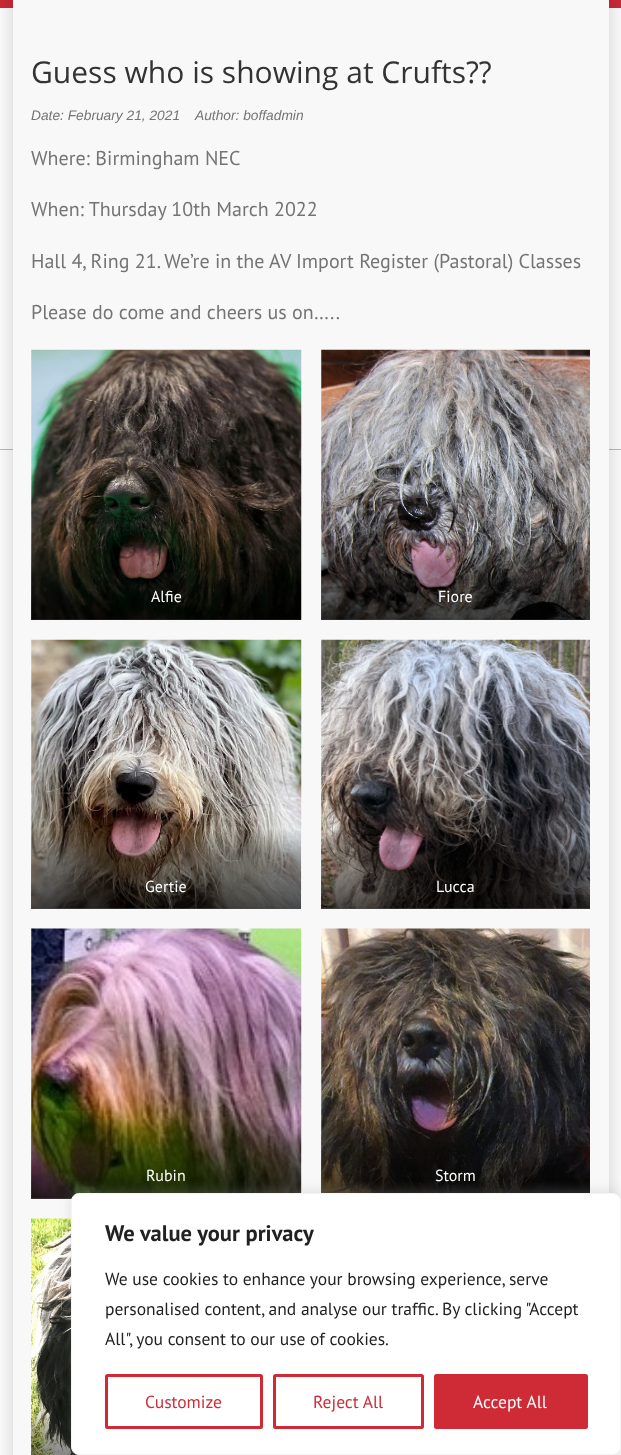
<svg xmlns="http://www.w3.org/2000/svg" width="621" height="1455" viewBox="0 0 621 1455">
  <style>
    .t1 { font: 30px Open Sans; fill: #333; }
    .t2 { font: italic 13.75px Liberation Sans; fill: #747474; }
    .t3 { font: 20px PT Sans; fill: #747474; }
    .t4 { font: 16px PT Sans; fill: #fff; }
    .t5 { font: bold 22.5px PT Sans; fill: #212121; }
    .t6 { font: 17.5px PT Sans; fill: #212121; }
    .t7 { font: 17.5px PT Sans; fill: #ce2b37; }
    .t8 { font: 17.5px PT Sans; fill: #fff; }
  </style>
  <defs>
    <linearGradient id="g1" gradientUnits="userSpaceOnUse" x1="166" y1="620" x2="166" y2="538"><stop offset="0" stop-color="#000" stop-opacity="0.7"/><stop offset="0.7" stop-color="#000" stop-opacity="0.3"/><stop offset="1" stop-color="#000" stop-opacity="0"/></linearGradient>
    <linearGradient id="g2" gradientUnits="userSpaceOnUse" x1="456" y1="620" x2="456" y2="538"><stop offset="0" stop-color="#000" stop-opacity="0.7"/><stop offset="0.7" stop-color="#000" stop-opacity="0.3"/><stop offset="1" stop-color="#000" stop-opacity="0"/></linearGradient>
    <linearGradient id="g3" gradientUnits="userSpaceOnUse" x1="166" y1="909" x2="166" y2="828"><stop offset="0" stop-color="#000" stop-opacity="0.7"/><stop offset="0.7" stop-color="#000" stop-opacity="0.3"/><stop offset="1" stop-color="#000" stop-opacity="0"/></linearGradient>
    <linearGradient id="g4" gradientUnits="userSpaceOnUse" x1="456" y1="909" x2="456" y2="828"><stop offset="0" stop-color="#000" stop-opacity="0.7"/><stop offset="0.7" stop-color="#000" stop-opacity="0.3"/><stop offset="1" stop-color="#000" stop-opacity="0"/></linearGradient>
    <linearGradient id="g5" gradientUnits="userSpaceOnUse" x1="166" y1="1199" x2="166" y2="1118"><stop offset="0" stop-color="#000" stop-opacity="0.7"/><stop offset="0.7" stop-color="#000" stop-opacity="0.3"/><stop offset="1" stop-color="#000" stop-opacity="0"/></linearGradient>
    <linearGradient id="g6" gradientUnits="userSpaceOnUse" x1="456" y1="1199" x2="456" y2="1118"><stop offset="0" stop-color="#000" stop-opacity="0.7"/><stop offset="0.7" stop-color="#000" stop-opacity="0.3"/><stop offset="1" stop-color="#000" stop-opacity="0"/></linearGradient>
    <linearGradient id="g7" gradientUnits="userSpaceOnUse" x1="166" y1="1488" x2="166" y2="1406"><stop offset="0" stop-color="#000" stop-opacity="0.7"/><stop offset="0.7" stop-color="#000" stop-opacity="0.3"/><stop offset="1" stop-color="#000" stop-opacity="0"/></linearGradient>
  </defs>
  <rect width="100%" height="100%" fill="#fff"/>
  <rect x="0" y="0" width="621" height="8" fill="#ce2b37"/>
  <rect x="0" y="449" width="621" height="1" fill="#bcbcbc"/>
  <rect x="13" y="-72" width="596" height="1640" rx="75" fill="#00000033" filter="blur(12.5px)"/>
  <path d="M88-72H534C575.5-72 609-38.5 609 3V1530H13V3C13-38.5 46.5-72 88-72Z" fill="#f8f8f8"/>
  <text x="31" y="83" class="t1">Guess who is showing at Crufts??</text>
  <text x="31" y="120" class="t2">Date: February 21, 2021</text>
  <text x="195" y="120" class="t2">Author: boffadmin</text>
  <text x="31" y="165" class="t3">Where: Birmingham NEC</text>
  <text x="31" y="216" class="t3">When: Thursday 10th March 2022</text>
  <text x="31" y="268" class="t3">Hall 4, Ring 21. We’re in the AV Import Register (Pastoral) Classes</text>
  <text x="31" y="319" class="t3">Please do come and cheers us on…..</text>
  <image x="31" y="349" width="271" height="271" href="images/1.png"/>
  <rect x="31" y="540" width="270" height="80" fill="url(#g1)"/>
  <text x="151" y="602" class="t4">Alfie</text>
  <image x="321" y="349" width="269" height="271" href="images/2.png"/>
  <rect x="321" y="540" width="269" height="80" fill="url(#g2)"/>
  <text x="438" y="602" class="t4">Fiore</text>
  <image x="31" y="639" width="271" height="270" href="images/3.png"/>
  <rect x="31" y="830" width="270" height="79" fill="url(#g3)"/>
  <text x="145" y="892" class="t4">Gertie</text>
  <image x="321" y="639" width="269" height="270" href="images/4.png"/>
  <rect x="321" y="830" width="269" height="79" fill="url(#g4)"/>
  <text x="436" y="892" class="t4">Lucca</text>
  <image x="31" y="928" width="271" height="271" href="images/5.png"/>
  <rect x="31" y="1120" width="270" height="79" fill="url(#g5)"/>
  <text x="146" y="1181" class="t4">Rubin</text>
  <image x="321" y="928" width="269" height="265" href="images/6.png"/>
  <rect x="321" y="1120" width="269" height="73" fill="url(#g6)"/>
  <text x="435" y="1181" class="t4">Storm</text>
  <image x="31" y="1218" width="48" height="237" href="images/7.png"/>
  <rect x="31" y="1408" width="48" height="47" fill="url(#g7)"/>
  <rect x="71" y="1191" width="550" height="263" rx="8" fill="#acabab4d" filter="blur(6px)"/>
  <rect x="71.5" y="1193.5" width="549" height="261" rx="7.5" fill="#fff" stroke="#f4f4f4"/>
  <text x="105" y="1241" class="t5">We value your privacy</text>
  <text x="105" y="1285" class="t6">We use cookies to enhance your browsing experience, serve</text>
  <text x="105" y="1315" class="t6">personalised content, and analyse our traffic. By clicking "Accept</text>
  <text x="105" y="1345" class="t6">All", you consent to our use of cookies.</text>
  <rect x="106.5" y="1375.5" width="155" height="52" rx="1" fill="none" stroke="#ce2b37" stroke-width="3"/>
  <text x="145" y="1408" class="t7">Customize</text>
  <rect x="274.5" y="1375.5" width="148" height="52" rx="1" fill="none" stroke="#ce2b37" stroke-width="3"/>
  <text x="313" y="1408" class="t7">Reject All</text>
  <rect x="435.5" y="1375.5" width="151" height="52" rx="1" fill="#ce2b37" stroke="#ce2b37" stroke-width="3"/>
  <text x="473" y="1408" class="t8">Accept All</text>
</svg>
